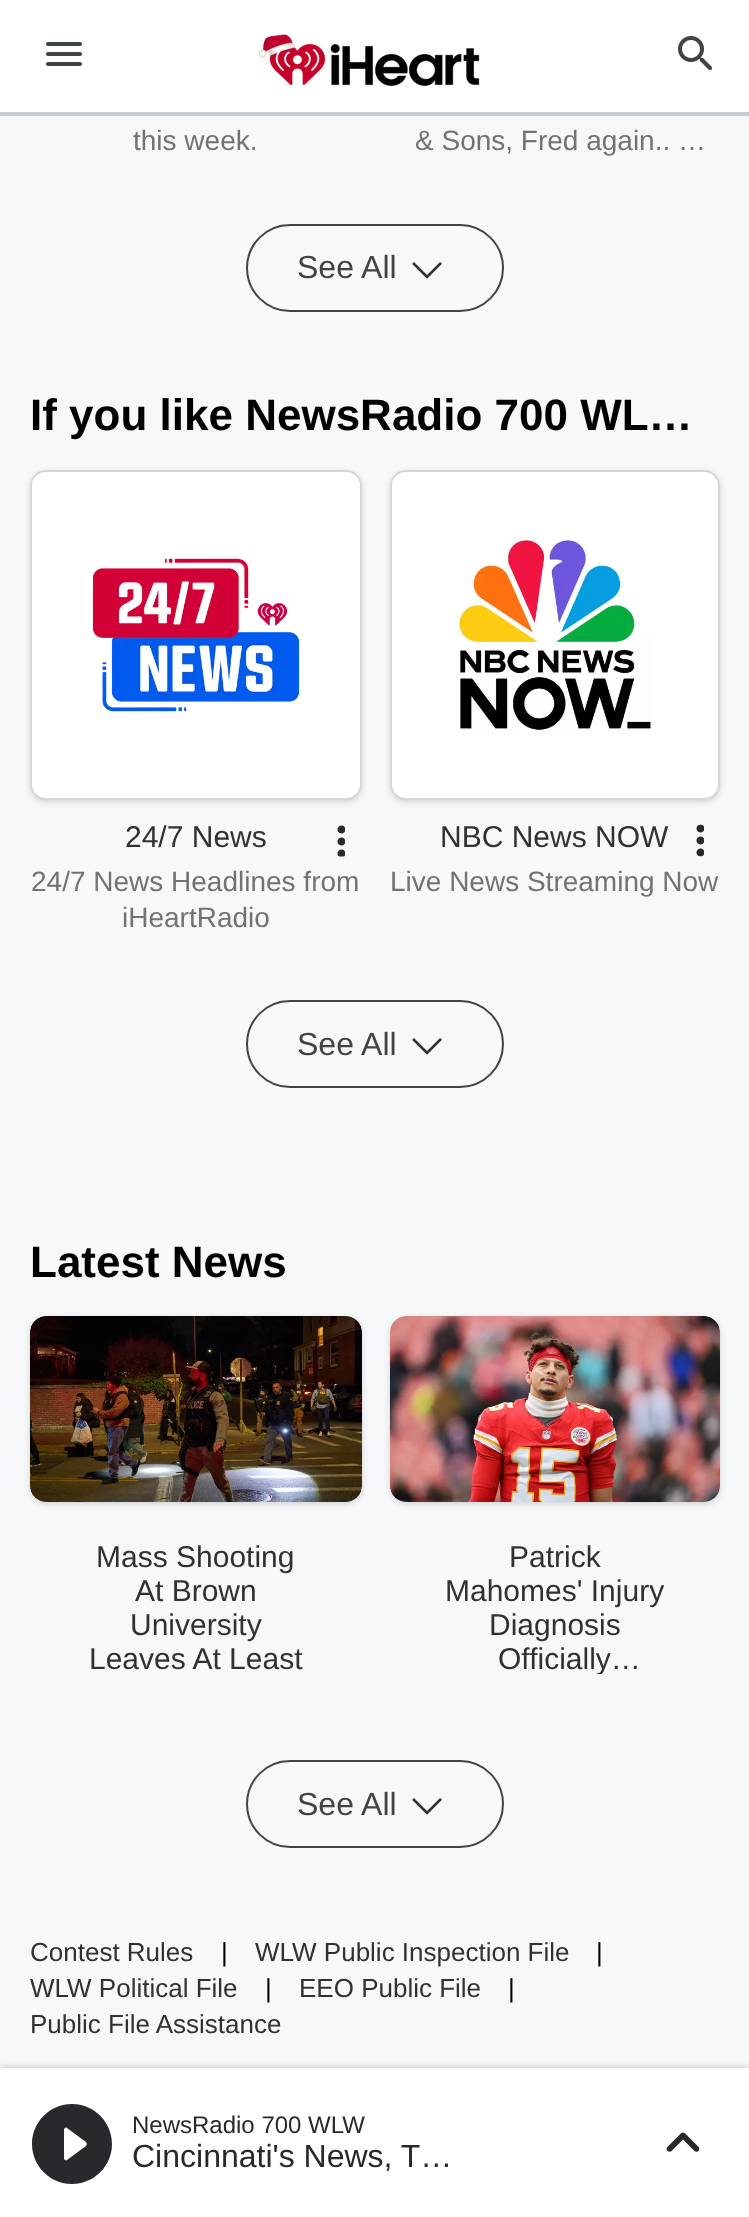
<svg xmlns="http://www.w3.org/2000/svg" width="749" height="2217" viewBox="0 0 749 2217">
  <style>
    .t1 { font: 28px Liberation Sans; fill: #717277; }
    .t2 { font: 32px Liberation Sans; fill: #3f4447; }
    .t3 { font: bold 44px Liberation Sans; fill: #000; }
    .t4 { font: 30px Liberation Sans; fill: #2f3133; }
    .t5 { font: 26px Liberation Sans; fill: #2f3133; }
    .t6 { font: 26px Liberation Sans; fill: #000; }
    .t7 { font: 24px Liberation Sans; fill: #27292d; }
    .t8 { font: 32px Liberation Sans; fill: #27292d; }
  </style>
  <defs>
    <clipPath id="clip1"><rect x="444" y="1538" width="222" height="136"/></clipPath>
  </defs>
  <rect width="100%" height="100%" fill="#f6f8f9"/>
  <rect x="0" y="0" width="749" height="112" fill="#fff"/>
  <rect x="0" y="112" width="749" height="4" fill="#c5cdd2"/>
  <image x="46" y="42" width="36" height="24" href="images/1.png"/>
  <image x="258" y="34" width="222" height="52" href="images/2.png"/>
  <image x="678" y="36" width="35" height="35" href="images/3.png"/>
  <text x="133" y="150" class="t1">this week.</text>
  <text x="415" y="150" class="t1">&amp; Sons, Fred again.. …</text>
  <rect x="247" y="225" width="256" height="86" rx="43" fill="none" stroke="#3f4447" stroke-width="2"/>
  <text x="297" y="278" class="t2">See All</text>
  <image x="412" y="262" width="30" height="17" href="images/4.png"/>
  <text x="30" y="430" class="t3">If you like NewsRadio 700 WL…</text>
  <rect x="30" y="472" width="332" height="330" rx="16" fill="#00000026" filter="blur(3px)"/>
  <rect x="31" y="471" width="330" height="328" rx="15" fill="#fff" stroke="#d7d7d7" stroke-width="2"/>
  <image x="92" y="558" width="208" height="154" href="images/5.png"/>
  <text x="125" y="847" class="t4">24/7 News</text>
  <image x="337" y="825" width="8" height="32" href="images/6.png"/>
  <text x="31" y="891" class="t1">24/7 News Headlines from</text>
  <text x="122" y="927" class="t1">iHeartRadio</text>
  <rect x="390" y="472" width="330" height="330" rx="16" fill="#00000026" filter="blur(3px)"/>
  <rect x="391" y="471" width="328" height="328" rx="15" fill="#fff" stroke="#d7d7d7" stroke-width="2"/>
  <image x="457" y="537" width="195" height="194" href="images/7.png"/>
  <text x="440" y="847" class="t4">NBC News NOW</text>
  <image x="696" y="824" width="8" height="33" href="images/8.png"/>
  <text x="390" y="891" class="t1">Live News Streaming Now</text>
  <rect x="247" y="1001" width="256" height="86" rx="43" fill="none" stroke="#3f4447" stroke-width="2"/>
  <text x="297" y="1055" class="t2">See All</text>
  <image x="412" y="1038" width="30" height="17" href="images/4.png"/>
  <text x="30" y="1277" class="t3">Latest News</text>
  <rect x="30" y="1318" width="332" height="186" rx="16" fill="#00000026" filter="blur(3px)"/>
  <image x="30" y="1316" width="332" height="186" href="images/9.png"/>
  <text x="96" y="1567" class="t4">Mass Shooting</text>
  <text x="135" y="1601" class="t4">At Brown</text>
  <text x="130" y="1635" class="t4">University</text>
  <text x="89" y="1669" class="t4">Leaves At Least</text>
  <rect x="390" y="1318" width="330" height="186" rx="16" fill="#00000026" filter="blur(3px)"/>
  <image x="390" y="1316" width="330" height="186" href="images/10.png"/>
  <text x="509" y="1567" class="t4">Patrick</text>
  <text x="445" y="1601" class="t4">Mahomes' Injury</text>
  <text x="489" y="1635" class="t4">Diagnosis</text>
  <g clip-path="url(#clip1)">
    <text x="498" y="1669" class="t4">Officially…</text>
  </g>
  <rect x="247" y="1761" width="256" height="86" rx="43" fill="none" stroke="#3f4447" stroke-width="2"/>
  <text x="297" y="1815" class="t2">See All</text>
  <image x="412" y="1798" width="30" height="17" href="images/4.png"/>
  <text x="30" y="1961" class="t5">Contest Rules</text>
  <text x="221" y="1961" class="t6">|</text>
  <text x="255" y="1961" class="t5">WLW Public Inspection File</text>
  <text x="596" y="1961" class="t6">|</text>
  <text x="30" y="1997" class="t5">WLW Political File</text>
  <text x="265" y="1997" class="t6">|</text>
  <text x="299" y="1997" class="t5">EEO Public File</text>
  <text x="508" y="1997" class="t6">|</text>
  <text x="30" y="2033" class="t5">Public File Assistance</text>
  <rect x="0" y="2066" width="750" height="150" fill="#00000026" filter="blur(3px)"/>
  <rect x="0" y="2068" width="749" height="149" fill="#fff"/>
  <path d="M72 2104C50 2104 32 2122 32 2144C32 2166 50 2184 72 2184C94 2184 112 2166 112 2144C112 2122 94 2104 72 2104ZM64 2158V2130C64 2128 66 2127 67 2128L86 2142C87 2143 87 2145 86 2146L67 2160C66 2161 64 2160 64 2158Z" fill="#27292d"/>
  <text x="132" y="2133" class="t7">NewsRadio 700 WLW</text>
  <text x="132" y="2167" class="t8">Cincinnati's News, T…</text>
  <image x="666" y="2132" width="34" height="20" href="images/11.png"/>
</svg>
